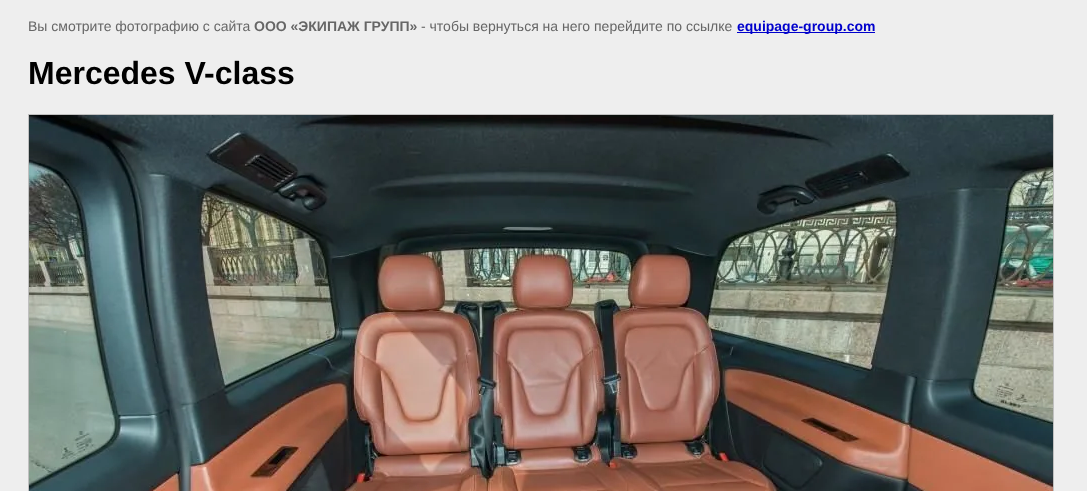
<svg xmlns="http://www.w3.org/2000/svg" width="1087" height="491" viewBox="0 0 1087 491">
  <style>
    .t1 { font: 14px Liberation Sans; fill: #666; }
    .t2 { font: bold 14px Liberation Sans; fill: #666; }
    .t3 { font: bold 14px Liberation Sans; fill: #00c; }
    .t4 { font: bold 32px Liberation Sans; fill: #000; }
  </style>
  <rect width="100%" height="100%" fill="#eee"/>
  <text x="28" y="31" class="t1">Вы смотрите фотографию с сайта</text>
  <text x="254" y="31" class="t2">ООО «ЭКИПАЖ ГРУПП»</text>
  <text x="421" y="31" class="t1">- чтобы вернуться на него перейдите по ссылке</text>
  <rect x="737" y="32" width="138" height="1" fill="#00c"/>
  <text x="737" y="31" class="t3">equipage-group.com</text>
  <text x="28" y="84" class="t4">Mercedes V-class</text>
  <rect x="28.5" y="114.5" width="1025" height="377" fill="none" stroke="#c0c0c0"/>
  <image x="29" y="115" width="1024" height="376" href="images/1.png"/>
</svg>
